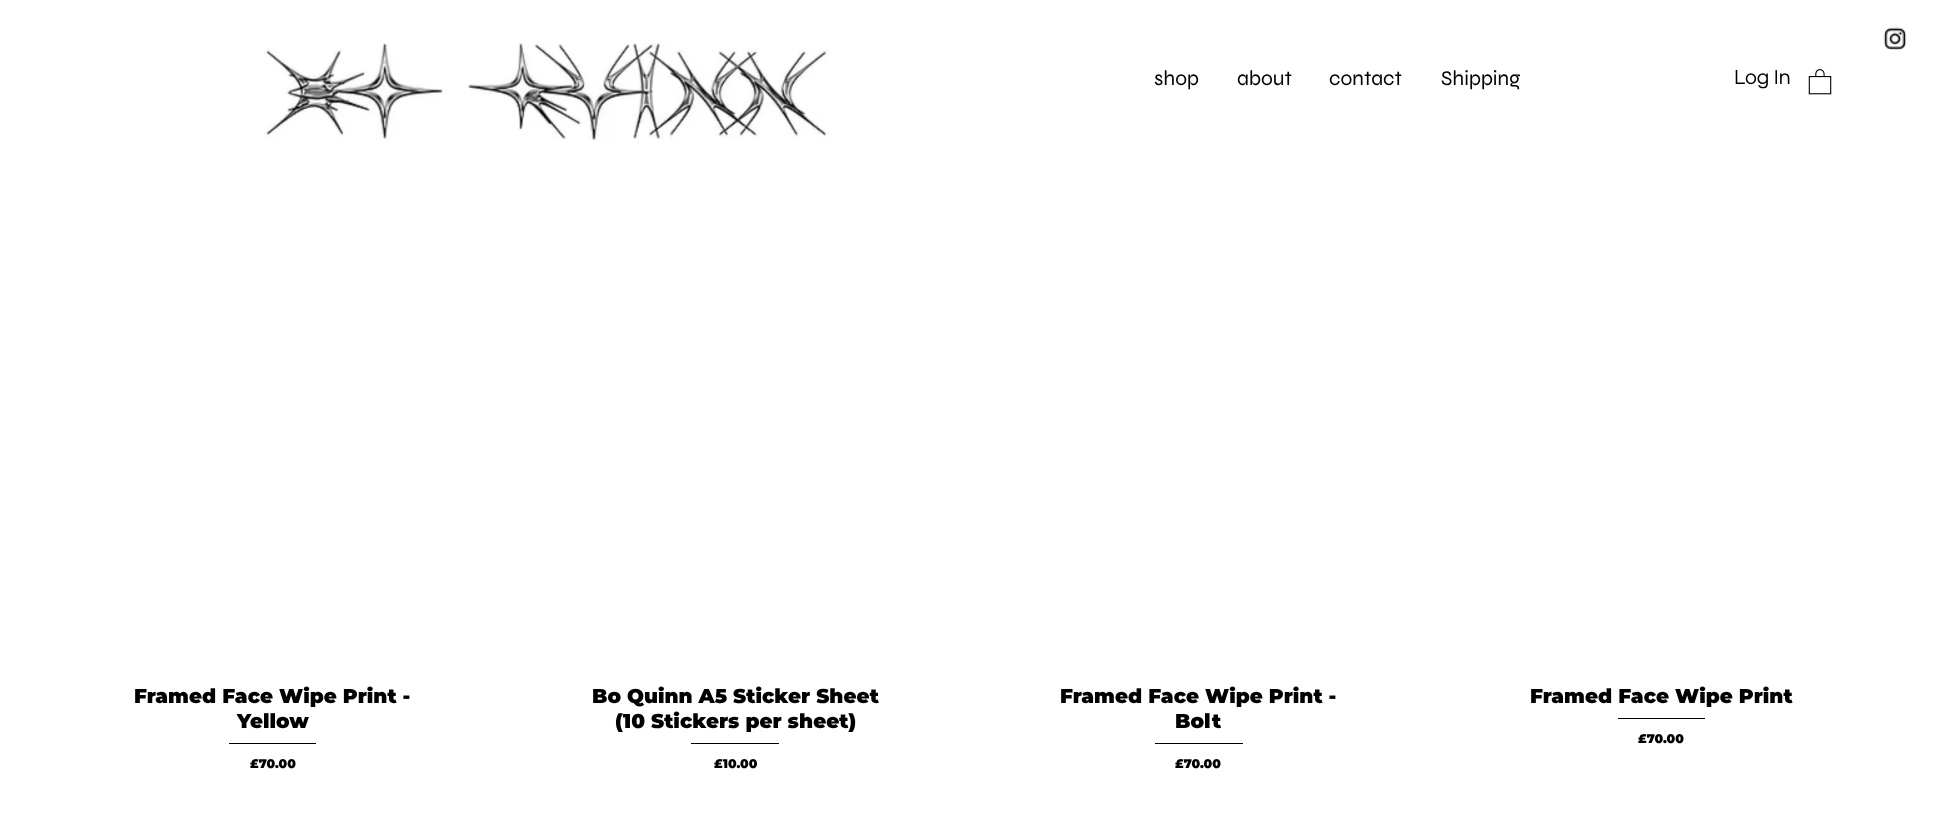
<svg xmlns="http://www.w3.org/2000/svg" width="1933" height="840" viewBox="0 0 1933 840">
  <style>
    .t1 { font: 21px Syne; fill: #000; }
    .t2 { font: 21px Questrial; fill: #000; }
    .t3 { font: 100 20px Montserrat; fill: #000; }
    .t4 { font: 100 12.5px Montserrat; fill: #000; }
  </style>
  <rect width="100%" height="100%" fill="#fff"/>
  <image x="1883" y="27" width="24" height="23" href="images/1.png"/>
  <image x="264" y="43" width="565" height="98" href="images/2.png"/>
  <text x="1154" y="85" class="t1">shop</text>
  <text x="1237" y="85" class="t1">about</text>
  <text x="1329" y="85" class="t1">contact</text>
  <text x="1441" y="85" class="t1">Shipping</text>
  <text x="1734" y="84" class="t2">Log In</text>
  <image x="1808" y="69" width="24" height="26" href="images/3.png"/>
  <text x="134" y="703" class="t3">Framed Face Wipe Print -</text>
  <text x="237" y="728" class="t3">Yellow</text>
  <rect x="229" y="743" width="87" height="1" fill="#000"/>
  <text x="250" y="768" class="t4">£70.00</text>
  <text x="592" y="703" class="t3">Bo Quinn A5 Sticker Sheet</text>
  <text x="615" y="728" class="t3">(10 Stickers per sheet)</text>
  <rect x="691" y="743" width="88" height="1" fill="#000"/>
  <text x="714" y="768" class="t4">£10.00</text>
  <text x="1060" y="703" class="t3">Framed Face Wipe Print -</text>
  <text x="1175" y="728" class="t3">Bolt</text>
  <rect x="1155" y="743" width="88" height="1" fill="#000"/>
  <text x="1175" y="768" class="t4">£70.00</text>
  <text x="1530" y="703" class="t3">Framed Face Wipe Print</text>
  <rect x="1618" y="718" width="87" height="1" fill="#000"/>
  <text x="1638" y="743" class="t4">£70.00</text>
</svg>
